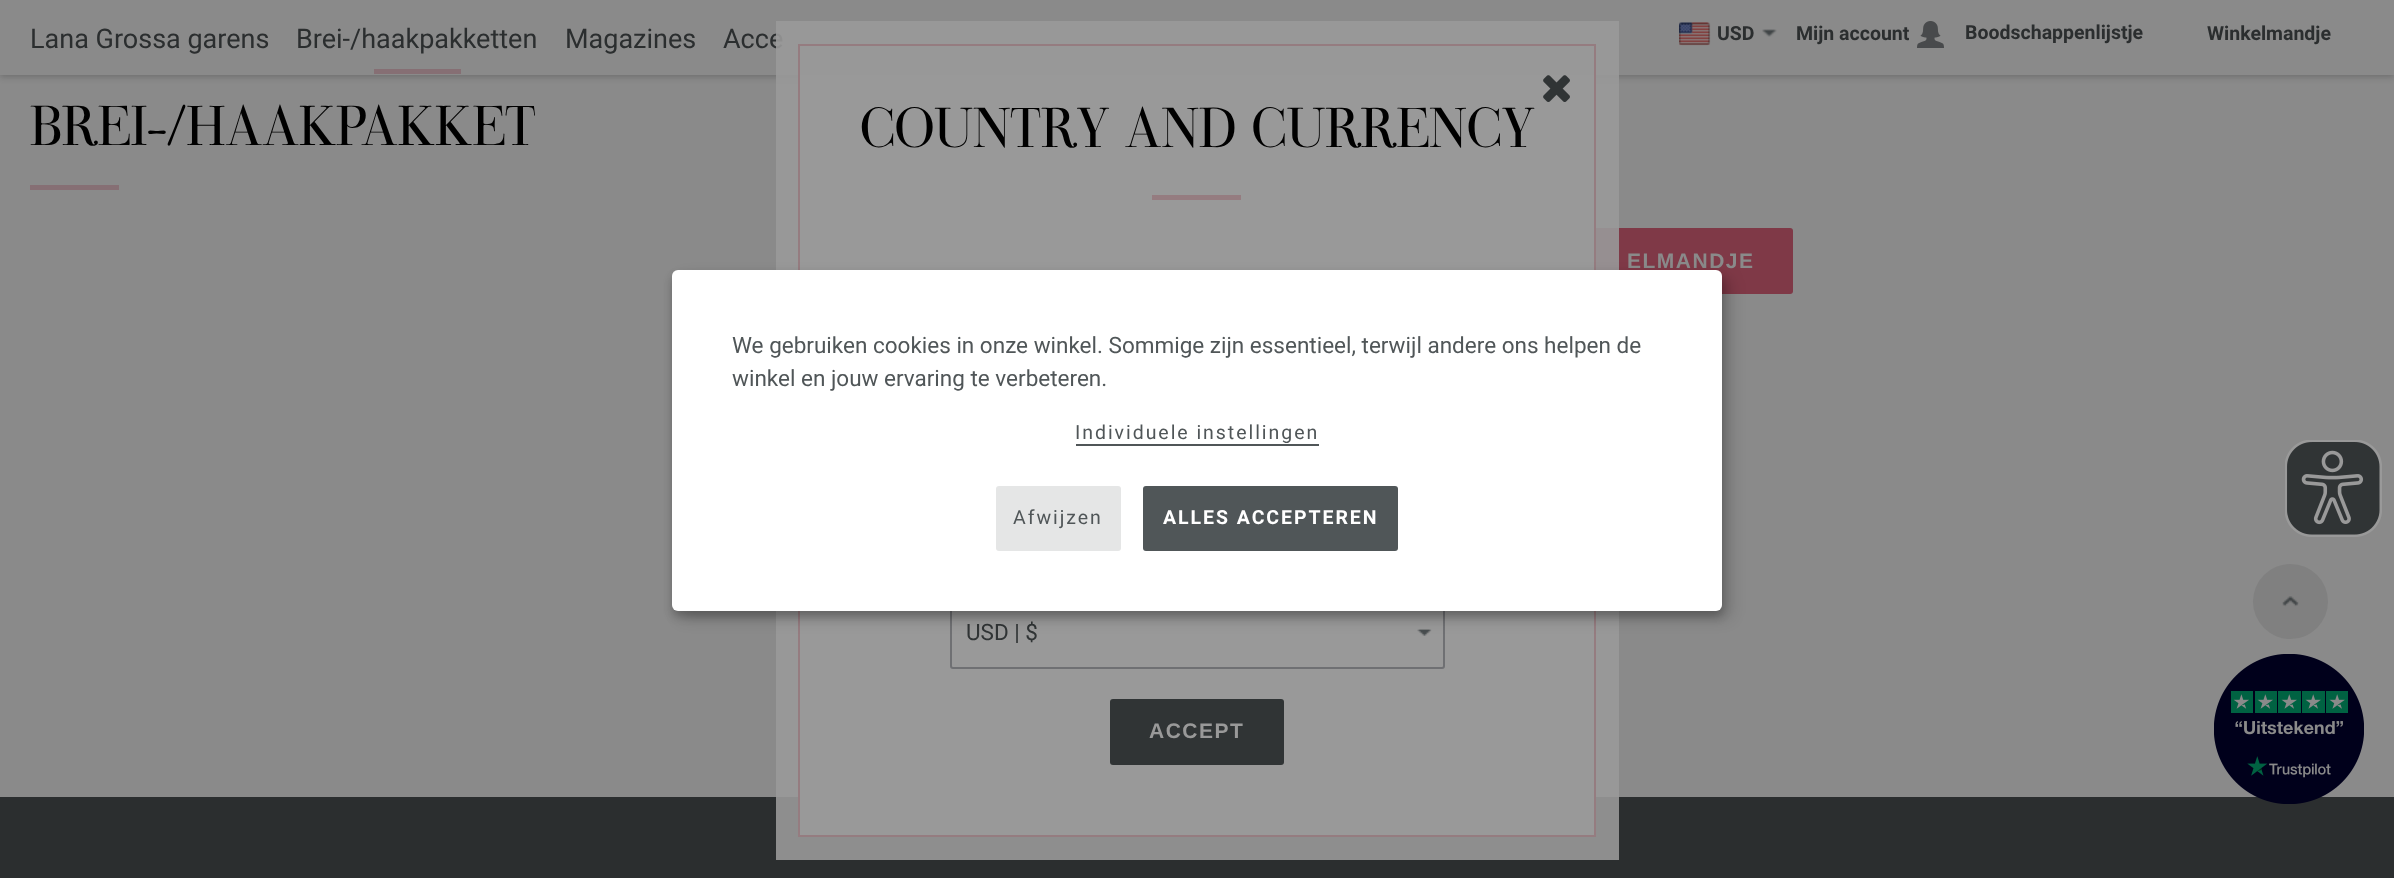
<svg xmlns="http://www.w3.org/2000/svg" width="2394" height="878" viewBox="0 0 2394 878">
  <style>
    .t1 { font: 27px Roboto; fill: #2b2e2f; }
    .t2 { font: bold 19.5px Roboto; fill: #2b2e2f; }
    .t3 { font: 55.5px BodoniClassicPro; fill: #000; }
    .t4 { font: bold 21px Liberation Sans; letter-spacing: 1.5px; fill: #8a8a8a; }
    .t5 { font: 22.5px Roboto; fill: #303435; }
    .t6 { font: bold 21px Liberation Sans; letter-spacing: 1.5px; fill: #999; }
    .t7 { font: 22.5px Roboto; fill: #505658; }
    .t8 { font: 19.5px Roboto; letter-spacing: 1.95px; fill: #505658; }
    .t9 { font: bold 19.5px Roboto; letter-spacing: 1.95px; fill: #fff; }
  </style>
  <rect width="100%" height="100%" fill="#8a8a8a"/>
  <rect x="0" y="2" width="2394" height="75" fill="#00000033" filter="blur(3px)"/>
  <rect x="0" y="0" width="2394" height="75" fill="#8a8a8a"/>
  <text x="30" y="48" class="t1">Lana Grossa garens</text>
  <text x="296" y="48" class="t1">Brei-/haakpakketten</text>
  <rect x="374" y="69" width="87" height="5" fill="#866f74"/>
  <text x="565" y="48" class="t1">Magazines</text>
  <text x="723" y="48" class="t1">Acce</text>
  <image x="1679" y="22" width="32" height="24" href="images/1.png"/>
  <rect x="1680" y="24" width="29" height="20" rx="2" fill="none" stroke="#0000001f" stroke-width="2"/>
  <text x="1717" y="40" class="t2">USD</text>
  <image x="1762" y="29" width="15" height="8" href="images/2.png"/>
  <text x="1796" y="40" class="t2">Mijn account</text>
  <image x="1917" y="21" width="27" height="27" href="images/3.png"/>
  <text x="1965" y="39" class="t2">Boodschappenlijstje</text>
  <text x="2207" y="40" class="t2">Winkelmandje</text>
  <text x="30" y="145" class="t3">BREI-/HAAKPAKKET</text>
  <rect x="30" y="185" width="89" height="5" fill="#866f74"/>
  <rect x="1401" y="228" width="392" height="66" rx="3" fill="#7f3947"/>
  <text x="1627" y="268" class="t4">ELMANDJE</text>
  <rect x="0" y="797" width="2394" height="81" fill="#2b2e2f"/>
  <rect x="776" y="21" width="843" height="839" fill="#999999e6"/>
  <rect x="800" y="75" width="794" height="760" fill="#999"/>
  <rect x="799" y="45" width="796" height="791" fill="none" stroke="#957c80" stroke-width="2"/>
  <image x="1543" y="75" width="27" height="27" href="images/4.png"/>
  <text x="860" y="147" class="t3">COUNTRY AND CURRENCY</text>
  <rect x="1152" y="195" width="89" height="5" fill="#957c80"/>
  <image x="1417" y="629" width="15" height="7" href="images/5.png"/>
  <rect x="951" y="598" width="493" height="70" rx="2" fill="none" stroke="#6f7073" stroke-width="2"/>
  <text x="966" y="640" class="t5">USD | $</text>
  <rect x="1110" y="699" width="174" height="66" rx="3" fill="#303435"/>
  <text x="1149" y="738" class="t6">ACCEPT</text>
  <rect x="680" y="278" width="1050" height="340" rx="6" fill="#00000030" filter="blur(7.5px)"/>
  <rect x="672" y="276" width="1050" height="341" rx="6" fill="#00000033" filter="blur(4.5px)"/>
  <rect x="672" y="270" width="1050" height="341" rx="6" fill="#fff"/>
  <text x="732" y="353" class="t7">We gebruiken cookies in onze winkel. Sommige zijn essentieel, terwijl andere ons helpen de</text>
  <text x="732" y="386" class="t7">winkel en jouw ervaring te verbeteren.</text>
  <text x="1075" y="439" class="t8">Individuele instellingen</text>
  <rect x="1076" y="444" width="243" height="2" fill="#505658"/>
  <rect x="996" y="486" width="125" height="65" rx="3" fill="#e5e6e6"/>
  <text x="1013" y="524" class="t8">Afwijzen</text>
  <rect x="1143" y="486" width="255" height="65" rx="3" fill="#505658"/>
  <text x="1163" y="524" class="t9">ALLES ACCEPTEREN</text>
  <image x="2285" y="440" width="97" height="97" href="images/6.png"/>
  <circle cx="2290.5" cy="601.5" r="37.5" fill="#808080"/>
  <image x="2282" y="596" width="17" height="11" href="images/7.png"/>
  <image x="2214" y="654" width="150" height="150" href="images/8.png"/>
</svg>
